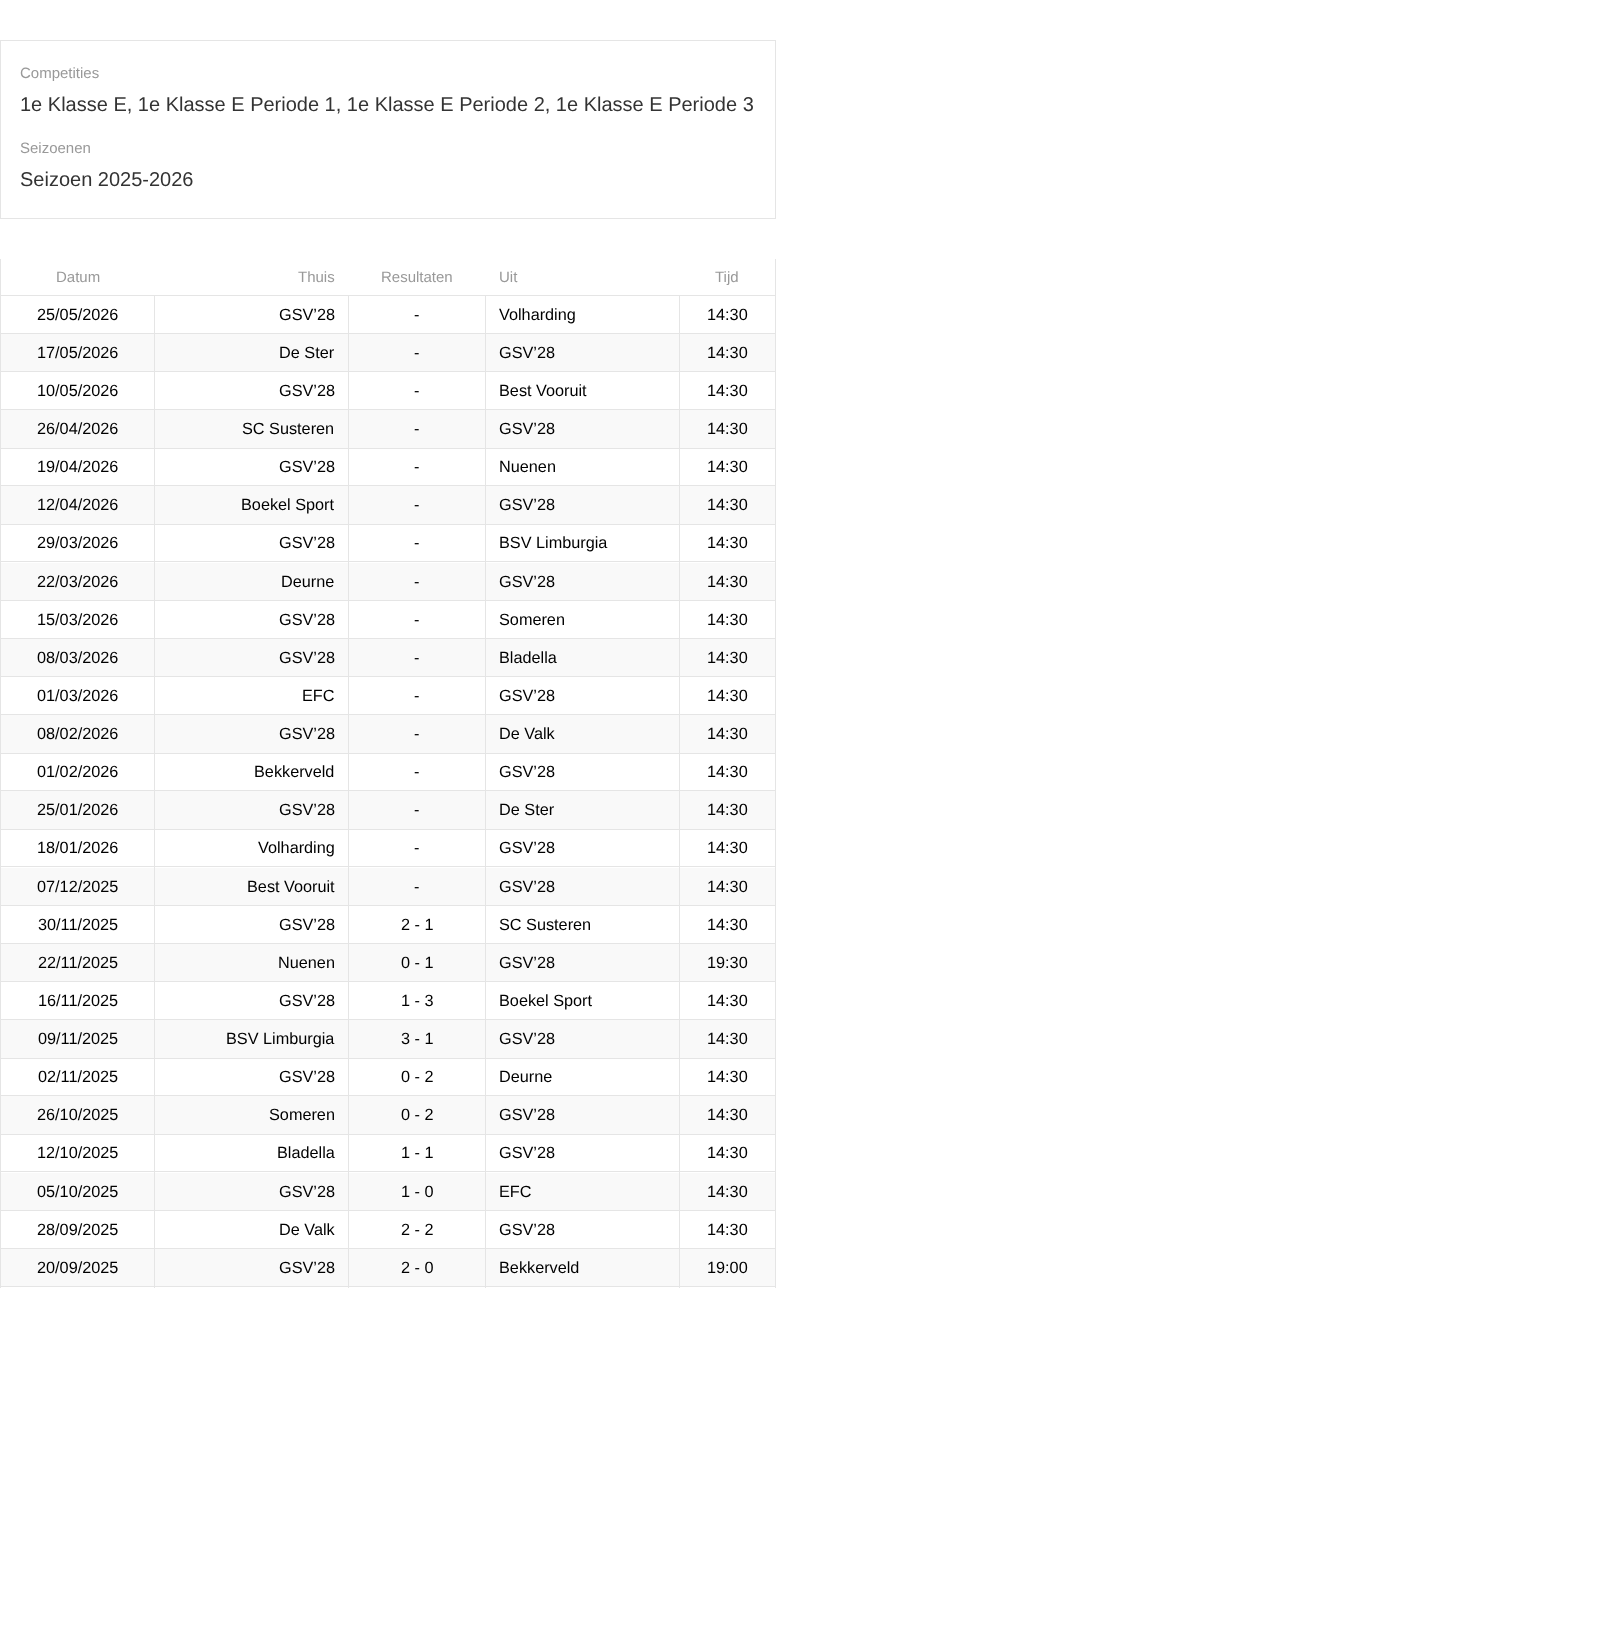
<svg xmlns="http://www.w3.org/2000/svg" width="1621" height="1638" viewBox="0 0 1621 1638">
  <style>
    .t1 { font: 15px Liberation Sans; fill: #999; }
    .t2 { font: 20px Liberation Sans; fill: #333; }
    .t3 { font: 16.25px Liberation Sans; fill: #000; }
  </style>
  <rect width="100%" height="100%" fill="#fff"/>
  <rect x="0.5" y="40.5" width="775" height="178" fill="none" stroke="#e5e5e5"/>
  <text x="20" y="78" class="t1">Competities</text>
  <text x="20" y="111" class="t2">1e Klasse E, 1e Klasse E Periode 1, 1e Klasse E Periode 2, 1e Klasse E Periode 3</text>
  <text x="20" y="153" class="t1">Seizoenen</text>
  <text x="20" y="186" class="t2">Seizoen 2025-2026</text>
  <rect x="775" y="259" width="1" height="1029" fill="#e5e5e5"/>
  <rect x="0" y="1286" width="776" height="1" fill="#e5e5e5"/>
  <rect x="0" y="259" width="1" height="1029" fill="#e5e5e5"/>
  <text x="56" y="282" class="t1">Datum</text>
  <text x="298" y="282" class="t1">Thuis</text>
  <text x="381" y="282" class="t1">Resultaten</text>
  <text x="499" y="282" class="t1">Uit</text>
  <text x="715" y="282" class="t1">Tijd</text>
  <rect x="679" y="295" width="97" height="1" fill="#e5e5e5"/>
  <rect x="679" y="333" width="97" height="1" fill="#e5e5e5"/>
  <rect x="679" y="371" width="97" height="1" fill="#e5e5e5"/>
  <rect x="679" y="409" width="97" height="1" fill="#e5e5e5"/>
  <rect x="679" y="448" width="97" height="1" fill="#e5e5e5"/>
  <rect x="679" y="485" width="97" height="1" fill="#e5e5e5"/>
  <rect x="679" y="524" width="97" height="1" fill="#e5e5e5"/>
  <rect x="679" y="561" width="97" height="1" fill="#e5e5e5"/>
  <rect x="679" y="600" width="97" height="1" fill="#e5e5e5"/>
  <rect x="679" y="638" width="97" height="1" fill="#e5e5e5"/>
  <rect x="679" y="676" width="97" height="1" fill="#e5e5e5"/>
  <rect x="679" y="714" width="97" height="1" fill="#e5e5e5"/>
  <rect x="679" y="753" width="97" height="1" fill="#e5e5e5"/>
  <rect x="679" y="790" width="97" height="1" fill="#e5e5e5"/>
  <rect x="679" y="829" width="97" height="1" fill="#e5e5e5"/>
  <rect x="679" y="866" width="97" height="1" fill="#e5e5e5"/>
  <rect x="679" y="905" width="97" height="1" fill="#e5e5e5"/>
  <rect x="679" y="943" width="97" height="1" fill="#e5e5e5"/>
  <rect x="679" y="981" width="97" height="1" fill="#e5e5e5"/>
  <rect x="679" y="1019" width="97" height="1" fill="#e5e5e5"/>
  <rect x="679" y="1058" width="97" height="1" fill="#e5e5e5"/>
  <rect x="679" y="1095" width="97" height="1" fill="#e5e5e5"/>
  <rect x="679" y="1134" width="97" height="1" fill="#e5e5e5"/>
  <rect x="679" y="1171" width="97" height="1" fill="#e5e5e5"/>
  <rect x="679" y="1210" width="97" height="1" fill="#e5e5e5"/>
  <rect x="679" y="1248" width="97" height="1" fill="#e5e5e5"/>
  <rect x="679" y="1248" width="1" height="40" fill="#e5e5e5"/>
  <rect x="485" y="1248" width="195" height="1" fill="#e5e5e5"/>
  <rect x="679" y="1210" width="1" height="39" fill="#e5e5e5"/>
  <rect x="485" y="1210" width="195" height="1" fill="#e5e5e5"/>
  <rect x="679" y="1171" width="1" height="40" fill="#e5e5e5"/>
  <rect x="485" y="1171" width="195" height="1" fill="#e5e5e5"/>
  <rect x="679" y="1134" width="1" height="39" fill="#e5e5e5"/>
  <rect x="485" y="1134" width="195" height="1" fill="#e5e5e5"/>
  <rect x="679" y="1095" width="1" height="40" fill="#e5e5e5"/>
  <rect x="485" y="1095" width="195" height="1" fill="#e5e5e5"/>
  <rect x="679" y="1058" width="1" height="38" fill="#e5e5e5"/>
  <rect x="485" y="1058" width="195" height="1" fill="#e5e5e5"/>
  <rect x="679" y="1019" width="1" height="40" fill="#e5e5e5"/>
  <rect x="485" y="1019" width="195" height="1" fill="#e5e5e5"/>
  <rect x="679" y="981" width="1" height="39" fill="#e5e5e5"/>
  <rect x="485" y="981" width="195" height="1" fill="#e5e5e5"/>
  <rect x="679" y="943" width="1" height="40" fill="#e5e5e5"/>
  <rect x="485" y="943" width="195" height="1" fill="#e5e5e5"/>
  <rect x="679" y="905" width="1" height="39" fill="#e5e5e5"/>
  <rect x="485" y="905" width="195" height="1" fill="#e5e5e5"/>
  <rect x="679" y="866" width="1" height="40" fill="#e5e5e5"/>
  <rect x="485" y="866" width="195" height="1" fill="#e5e5e5"/>
  <rect x="679" y="829" width="1" height="39" fill="#e5e5e5"/>
  <rect x="485" y="829" width="195" height="1" fill="#e5e5e5"/>
  <rect x="679" y="790" width="1" height="40" fill="#e5e5e5"/>
  <rect x="485" y="790" width="195" height="1" fill="#e5e5e5"/>
  <rect x="679" y="753" width="1" height="38" fill="#e5e5e5"/>
  <rect x="485" y="753" width="195" height="1" fill="#e5e5e5"/>
  <rect x="679" y="714" width="1" height="40" fill="#e5e5e5"/>
  <rect x="485" y="714" width="195" height="1" fill="#e5e5e5"/>
  <rect x="679" y="676" width="1" height="39" fill="#e5e5e5"/>
  <rect x="485" y="676" width="195" height="1" fill="#e5e5e5"/>
  <rect x="679" y="638" width="1" height="40" fill="#e5e5e5"/>
  <rect x="485" y="638" width="195" height="1" fill="#e5e5e5"/>
  <rect x="679" y="600" width="1" height="39" fill="#e5e5e5"/>
  <rect x="485" y="600" width="195" height="1" fill="#e5e5e5"/>
  <rect x="679" y="561" width="1" height="40" fill="#e5e5e5"/>
  <rect x="485" y="561" width="195" height="1" fill="#e5e5e5"/>
  <rect x="679" y="524" width="1" height="39" fill="#e5e5e5"/>
  <rect x="485" y="524" width="195" height="1" fill="#e5e5e5"/>
  <rect x="679" y="485" width="1" height="40" fill="#e5e5e5"/>
  <rect x="485" y="485" width="195" height="1" fill="#e5e5e5"/>
  <rect x="679" y="448" width="1" height="38" fill="#e5e5e5"/>
  <rect x="485" y="448" width="195" height="1" fill="#e5e5e5"/>
  <rect x="679" y="409" width="1" height="40" fill="#e5e5e5"/>
  <rect x="485" y="409" width="195" height="1" fill="#e5e5e5"/>
  <rect x="679" y="371" width="1" height="39" fill="#e5e5e5"/>
  <rect x="485" y="371" width="195" height="1" fill="#e5e5e5"/>
  <rect x="679" y="333" width="1" height="40" fill="#e5e5e5"/>
  <rect x="485" y="333" width="195" height="1" fill="#e5e5e5"/>
  <rect x="679" y="295" width="1" height="39" fill="#e5e5e5"/>
  <rect x="485" y="295" width="195" height="1" fill="#e5e5e5"/>
  <rect x="485" y="1248" width="1" height="40" fill="#e5e5e5"/>
  <rect x="348" y="1248" width="138" height="1" fill="#e5e5e5"/>
  <rect x="485" y="1210" width="1" height="39" fill="#e5e5e5"/>
  <rect x="348" y="1210" width="138" height="1" fill="#e5e5e5"/>
  <rect x="485" y="1171" width="1" height="40" fill="#e5e5e5"/>
  <rect x="348" y="1171" width="138" height="1" fill="#e5e5e5"/>
  <rect x="485" y="1134" width="1" height="39" fill="#e5e5e5"/>
  <rect x="348" y="1134" width="138" height="1" fill="#e5e5e5"/>
  <rect x="485" y="1095" width="1" height="40" fill="#e5e5e5"/>
  <rect x="348" y="1095" width="138" height="1" fill="#e5e5e5"/>
  <rect x="485" y="1058" width="1" height="38" fill="#e5e5e5"/>
  <rect x="348" y="1058" width="138" height="1" fill="#e5e5e5"/>
  <rect x="485" y="1019" width="1" height="40" fill="#e5e5e5"/>
  <rect x="348" y="1019" width="138" height="1" fill="#e5e5e5"/>
  <rect x="485" y="981" width="1" height="39" fill="#e5e5e5"/>
  <rect x="348" y="981" width="138" height="1" fill="#e5e5e5"/>
  <rect x="485" y="943" width="1" height="40" fill="#e5e5e5"/>
  <rect x="348" y="943" width="138" height="1" fill="#e5e5e5"/>
  <rect x="485" y="905" width="1" height="39" fill="#e5e5e5"/>
  <rect x="348" y="905" width="138" height="1" fill="#e5e5e5"/>
  <rect x="485" y="866" width="1" height="40" fill="#e5e5e5"/>
  <rect x="348" y="866" width="138" height="1" fill="#e5e5e5"/>
  <rect x="485" y="829" width="1" height="39" fill="#e5e5e5"/>
  <rect x="348" y="829" width="138" height="1" fill="#e5e5e5"/>
  <rect x="485" y="790" width="1" height="40" fill="#e5e5e5"/>
  <rect x="348" y="790" width="138" height="1" fill="#e5e5e5"/>
  <rect x="485" y="753" width="1" height="38" fill="#e5e5e5"/>
  <rect x="348" y="753" width="138" height="1" fill="#e5e5e5"/>
  <rect x="485" y="714" width="1" height="40" fill="#e5e5e5"/>
  <rect x="348" y="714" width="138" height="1" fill="#e5e5e5"/>
  <rect x="485" y="676" width="1" height="39" fill="#e5e5e5"/>
  <rect x="348" y="676" width="138" height="1" fill="#e5e5e5"/>
  <rect x="485" y="638" width="1" height="40" fill="#e5e5e5"/>
  <rect x="348" y="638" width="138" height="1" fill="#e5e5e5"/>
  <rect x="485" y="600" width="1" height="39" fill="#e5e5e5"/>
  <rect x="348" y="600" width="138" height="1" fill="#e5e5e5"/>
  <rect x="485" y="561" width="1" height="40" fill="#e5e5e5"/>
  <rect x="348" y="561" width="138" height="1" fill="#e5e5e5"/>
  <rect x="485" y="524" width="1" height="39" fill="#e5e5e5"/>
  <rect x="348" y="524" width="138" height="1" fill="#e5e5e5"/>
  <rect x="485" y="485" width="1" height="40" fill="#e5e5e5"/>
  <rect x="348" y="485" width="138" height="1" fill="#e5e5e5"/>
  <rect x="485" y="448" width="1" height="38" fill="#e5e5e5"/>
  <rect x="348" y="448" width="138" height="1" fill="#e5e5e5"/>
  <rect x="485" y="409" width="1" height="40" fill="#e5e5e5"/>
  <rect x="348" y="409" width="138" height="1" fill="#e5e5e5"/>
  <rect x="485" y="371" width="1" height="39" fill="#e5e5e5"/>
  <rect x="348" y="371" width="138" height="1" fill="#e5e5e5"/>
  <rect x="485" y="333" width="1" height="40" fill="#e5e5e5"/>
  <rect x="348" y="333" width="138" height="1" fill="#e5e5e5"/>
  <rect x="485" y="295" width="1" height="39" fill="#e5e5e5"/>
  <rect x="348" y="295" width="138" height="1" fill="#e5e5e5"/>
  <rect x="348" y="1248" width="1" height="40" fill="#e5e5e5"/>
  <rect x="154" y="1248" width="195" height="1" fill="#e5e5e5"/>
  <rect x="348" y="1210" width="1" height="39" fill="#e5e5e5"/>
  <rect x="154" y="1210" width="195" height="1" fill="#e5e5e5"/>
  <rect x="348" y="1171" width="1" height="40" fill="#e5e5e5"/>
  <rect x="154" y="1171" width="195" height="1" fill="#e5e5e5"/>
  <rect x="348" y="1134" width="1" height="39" fill="#e5e5e5"/>
  <rect x="154" y="1134" width="195" height="1" fill="#e5e5e5"/>
  <rect x="348" y="1095" width="1" height="40" fill="#e5e5e5"/>
  <rect x="154" y="1095" width="195" height="1" fill="#e5e5e5"/>
  <rect x="348" y="1058" width="1" height="38" fill="#e5e5e5"/>
  <rect x="154" y="1058" width="195" height="1" fill="#e5e5e5"/>
  <rect x="348" y="1019" width="1" height="40" fill="#e5e5e5"/>
  <rect x="154" y="1019" width="195" height="1" fill="#e5e5e5"/>
  <rect x="348" y="981" width="1" height="39" fill="#e5e5e5"/>
  <rect x="154" y="981" width="195" height="1" fill="#e5e5e5"/>
  <rect x="348" y="943" width="1" height="40" fill="#e5e5e5"/>
  <rect x="154" y="943" width="195" height="1" fill="#e5e5e5"/>
  <rect x="348" y="905" width="1" height="39" fill="#e5e5e5"/>
  <rect x="154" y="905" width="195" height="1" fill="#e5e5e5"/>
  <rect x="348" y="866" width="1" height="40" fill="#e5e5e5"/>
  <rect x="154" y="866" width="195" height="1" fill="#e5e5e5"/>
  <rect x="348" y="829" width="1" height="39" fill="#e5e5e5"/>
  <rect x="154" y="829" width="195" height="1" fill="#e5e5e5"/>
  <rect x="348" y="790" width="1" height="40" fill="#e5e5e5"/>
  <rect x="154" y="790" width="195" height="1" fill="#e5e5e5"/>
  <rect x="348" y="753" width="1" height="38" fill="#e5e5e5"/>
  <rect x="154" y="753" width="195" height="1" fill="#e5e5e5"/>
  <rect x="348" y="714" width="1" height="40" fill="#e5e5e5"/>
  <rect x="154" y="714" width="195" height="1" fill="#e5e5e5"/>
  <rect x="348" y="676" width="1" height="39" fill="#e5e5e5"/>
  <rect x="154" y="676" width="195" height="1" fill="#e5e5e5"/>
  <rect x="348" y="638" width="1" height="40" fill="#e5e5e5"/>
  <rect x="154" y="638" width="195" height="1" fill="#e5e5e5"/>
  <rect x="348" y="600" width="1" height="39" fill="#e5e5e5"/>
  <rect x="154" y="600" width="195" height="1" fill="#e5e5e5"/>
  <rect x="348" y="561" width="1" height="40" fill="#e5e5e5"/>
  <rect x="154" y="561" width="195" height="1" fill="#e5e5e5"/>
  <rect x="348" y="524" width="1" height="39" fill="#e5e5e5"/>
  <rect x="154" y="524" width="195" height="1" fill="#e5e5e5"/>
  <rect x="348" y="485" width="1" height="40" fill="#e5e5e5"/>
  <rect x="154" y="485" width="195" height="1" fill="#e5e5e5"/>
  <rect x="348" y="448" width="1" height="38" fill="#e5e5e5"/>
  <rect x="154" y="448" width="195" height="1" fill="#e5e5e5"/>
  <rect x="348" y="409" width="1" height="40" fill="#e5e5e5"/>
  <rect x="154" y="409" width="195" height="1" fill="#e5e5e5"/>
  <rect x="348" y="371" width="1" height="39" fill="#e5e5e5"/>
  <rect x="154" y="371" width="195" height="1" fill="#e5e5e5"/>
  <rect x="348" y="333" width="1" height="40" fill="#e5e5e5"/>
  <rect x="154" y="333" width="195" height="1" fill="#e5e5e5"/>
  <rect x="348" y="295" width="1" height="39" fill="#e5e5e5"/>
  <rect x="154" y="295" width="195" height="1" fill="#e5e5e5"/>
  <rect x="154" y="1248" width="1" height="40" fill="#e5e5e5"/>
  <rect x="0" y="1248" width="155" height="1" fill="#e5e5e5"/>
  <rect x="154" y="1210" width="1" height="39" fill="#e5e5e5"/>
  <rect x="0" y="1210" width="155" height="1" fill="#e5e5e5"/>
  <rect x="154" y="1171" width="1" height="40" fill="#e5e5e5"/>
  <rect x="0" y="1171" width="155" height="1" fill="#e5e5e5"/>
  <rect x="154" y="1134" width="1" height="39" fill="#e5e5e5"/>
  <rect x="0" y="1134" width="155" height="1" fill="#e5e5e5"/>
  <rect x="154" y="1095" width="1" height="40" fill="#e5e5e5"/>
  <rect x="0" y="1095" width="155" height="1" fill="#e5e5e5"/>
  <rect x="154" y="1058" width="1" height="38" fill="#e5e5e5"/>
  <rect x="0" y="1058" width="155" height="1" fill="#e5e5e5"/>
  <rect x="154" y="1019" width="1" height="40" fill="#e5e5e5"/>
  <rect x="0" y="1019" width="155" height="1" fill="#e5e5e5"/>
  <rect x="154" y="981" width="1" height="39" fill="#e5e5e5"/>
  <rect x="0" y="981" width="155" height="1" fill="#e5e5e5"/>
  <rect x="154" y="943" width="1" height="40" fill="#e5e5e5"/>
  <rect x="0" y="943" width="155" height="1" fill="#e5e5e5"/>
  <rect x="154" y="905" width="1" height="39" fill="#e5e5e5"/>
  <rect x="0" y="905" width="155" height="1" fill="#e5e5e5"/>
  <rect x="154" y="866" width="1" height="40" fill="#e5e5e5"/>
  <rect x="0" y="866" width="155" height="1" fill="#e5e5e5"/>
  <rect x="154" y="829" width="1" height="39" fill="#e5e5e5"/>
  <rect x="0" y="829" width="155" height="1" fill="#e5e5e5"/>
  <rect x="154" y="790" width="1" height="40" fill="#e5e5e5"/>
  <rect x="0" y="790" width="155" height="1" fill="#e5e5e5"/>
  <rect x="154" y="753" width="1" height="38" fill="#e5e5e5"/>
  <rect x="0" y="753" width="155" height="1" fill="#e5e5e5"/>
  <rect x="154" y="714" width="1" height="40" fill="#e5e5e5"/>
  <rect x="0" y="714" width="155" height="1" fill="#e5e5e5"/>
  <rect x="154" y="676" width="1" height="39" fill="#e5e5e5"/>
  <rect x="0" y="676" width="155" height="1" fill="#e5e5e5"/>
  <rect x="154" y="638" width="1" height="40" fill="#e5e5e5"/>
  <rect x="0" y="638" width="155" height="1" fill="#e5e5e5"/>
  <rect x="154" y="600" width="1" height="39" fill="#e5e5e5"/>
  <rect x="0" y="600" width="155" height="1" fill="#e5e5e5"/>
  <rect x="154" y="561" width="1" height="40" fill="#e5e5e5"/>
  <rect x="0" y="561" width="155" height="1" fill="#e5e5e5"/>
  <rect x="154" y="524" width="1" height="39" fill="#e5e5e5"/>
  <rect x="0" y="524" width="155" height="1" fill="#e5e5e5"/>
  <rect x="154" y="485" width="1" height="40" fill="#e5e5e5"/>
  <rect x="0" y="485" width="155" height="1" fill="#e5e5e5"/>
  <rect x="154" y="448" width="1" height="38" fill="#e5e5e5"/>
  <rect x="0" y="448" width="155" height="1" fill="#e5e5e5"/>
  <rect x="154" y="409" width="1" height="40" fill="#e5e5e5"/>
  <rect x="0" y="409" width="155" height="1" fill="#e5e5e5"/>
  <rect x="154" y="371" width="1" height="39" fill="#e5e5e5"/>
  <rect x="0" y="371" width="155" height="1" fill="#e5e5e5"/>
  <rect x="154" y="333" width="1" height="40" fill="#e5e5e5"/>
  <rect x="0" y="333" width="155" height="1" fill="#e5e5e5"/>
  <rect x="154" y="295" width="1" height="39" fill="#e5e5e5"/>
  <rect x="0" y="295" width="155" height="1" fill="#e5e5e5"/>
  <text x="37" y="320" class="t3">25/05/2026</text>
  <text x="279" y="320" class="t3">GSV’28</text>
  <text x="414" y="320" class="t3">-</text>
  <text x="499" y="320" class="t3">Volharding</text>
  <text x="707" y="320" class="t3">14:30</text>
  <rect x="1" y="334" width="153" height="37" fill="#f9f9f9"/>
  <text x="37" y="358" class="t3">17/05/2026</text>
  <rect x="155" y="334" width="193" height="37" fill="#f9f9f9"/>
  <text x="279" y="358" class="t3">De Ster</text>
  <rect x="349" y="334" width="136" height="37" fill="#f9f9f9"/>
  <text x="414" y="358" class="t3">-</text>
  <rect x="486" y="334" width="193" height="37" fill="#f9f9f9"/>
  <text x="499" y="358" class="t3">GSV’28</text>
  <rect x="680" y="334" width="95" height="37" fill="#f9f9f9"/>
  <text x="707" y="358" class="t3">14:30</text>
  <text x="37" y="396" class="t3">10/05/2026</text>
  <text x="279" y="396" class="t3">GSV’28</text>
  <text x="414" y="396" class="t3">-</text>
  <text x="499" y="396" class="t3">Best Vooruit</text>
  <text x="707" y="396" class="t3">14:30</text>
  <rect x="1" y="410" width="153" height="38" fill="#f9f9f9"/>
  <text x="37" y="434" class="t3">26/04/2026</text>
  <rect x="155" y="410" width="193" height="38" fill="#f9f9f9"/>
  <text x="242" y="434" class="t3">SC Susteren</text>
  <rect x="349" y="410" width="136" height="38" fill="#f9f9f9"/>
  <text x="414" y="434" class="t3">-</text>
  <rect x="486" y="410" width="193" height="38" fill="#f9f9f9"/>
  <text x="499" y="434" class="t3">GSV’28</text>
  <rect x="680" y="410" width="95" height="38" fill="#f9f9f9"/>
  <text x="707" y="434" class="t3">14:30</text>
  <text x="37" y="472" class="t3">19/04/2026</text>
  <text x="279" y="472" class="t3">GSV’28</text>
  <text x="414" y="472" class="t3">-</text>
  <text x="499" y="472" class="t3">Nuenen</text>
  <text x="707" y="472" class="t3">14:30</text>
  <rect x="1" y="486" width="153" height="38" fill="#f9f9f9"/>
  <text x="37" y="510" class="t3">12/04/2026</text>
  <rect x="155" y="486" width="193" height="38" fill="#f9f9f9"/>
  <text x="241" y="510" class="t3">Boekel Sport</text>
  <rect x="349" y="486" width="136" height="38" fill="#f9f9f9"/>
  <text x="414" y="510" class="t3">-</text>
  <rect x="486" y="486" width="193" height="38" fill="#f9f9f9"/>
  <text x="499" y="510" class="t3">GSV’28</text>
  <rect x="680" y="486" width="95" height="38" fill="#f9f9f9"/>
  <text x="707" y="510" class="t3">14:30</text>
  <text x="37" y="548" class="t3">29/03/2026</text>
  <text x="279" y="548" class="t3">GSV’28</text>
  <text x="414" y="548" class="t3">-</text>
  <text x="499" y="548" class="t3">BSV Limburgia</text>
  <text x="707" y="548" class="t3">14:30</text>
  <rect x="1" y="563" width="153" height="37" fill="#f9f9f9"/>
  <text x="37" y="587" class="t3">22/03/2026</text>
  <rect x="155" y="563" width="193" height="37" fill="#f9f9f9"/>
  <text x="281" y="587" class="t3">Deurne</text>
  <rect x="349" y="563" width="136" height="37" fill="#f9f9f9"/>
  <text x="414" y="587" class="t3">-</text>
  <rect x="486" y="563" width="193" height="37" fill="#f9f9f9"/>
  <text x="499" y="587" class="t3">GSV’28</text>
  <rect x="680" y="563" width="95" height="37" fill="#f9f9f9"/>
  <text x="707" y="587" class="t3">14:30</text>
  <text x="37" y="625" class="t3">15/03/2026</text>
  <text x="279" y="625" class="t3">GSV’28</text>
  <text x="414" y="625" class="t3">-</text>
  <text x="499" y="625" class="t3">Someren</text>
  <text x="707" y="625" class="t3">14:30</text>
  <rect x="1" y="639" width="153" height="37" fill="#f9f9f9"/>
  <text x="37" y="663" class="t3">08/03/2026</text>
  <rect x="155" y="639" width="193" height="37" fill="#f9f9f9"/>
  <text x="279" y="663" class="t3">GSV’28</text>
  <rect x="349" y="639" width="136" height="37" fill="#f9f9f9"/>
  <text x="414" y="663" class="t3">-</text>
  <rect x="486" y="639" width="193" height="37" fill="#f9f9f9"/>
  <text x="499" y="663" class="t3">Bladella</text>
  <rect x="680" y="639" width="95" height="37" fill="#f9f9f9"/>
  <text x="707" y="663" class="t3">14:30</text>
  <text x="37" y="701" class="t3">01/03/2026</text>
  <text x="302" y="701" class="t3">EFC</text>
  <text x="414" y="701" class="t3">-</text>
  <text x="499" y="701" class="t3">GSV’28</text>
  <text x="707" y="701" class="t3">14:30</text>
  <rect x="1" y="715" width="153" height="38" fill="#f9f9f9"/>
  <text x="37" y="739" class="t3">08/02/2026</text>
  <rect x="155" y="715" width="193" height="38" fill="#f9f9f9"/>
  <text x="279" y="739" class="t3">GSV’28</text>
  <rect x="349" y="715" width="136" height="38" fill="#f9f9f9"/>
  <text x="414" y="739" class="t3">-</text>
  <rect x="486" y="715" width="193" height="38" fill="#f9f9f9"/>
  <text x="499" y="739" class="t3">De Valk</text>
  <rect x="680" y="715" width="95" height="38" fill="#f9f9f9"/>
  <text x="707" y="739" class="t3">14:30</text>
  <text x="37" y="777" class="t3">01/02/2026</text>
  <text x="254" y="777" class="t3">Bekkerveld</text>
  <text x="414" y="777" class="t3">-</text>
  <text x="499" y="777" class="t3">GSV’28</text>
  <text x="707" y="777" class="t3">14:30</text>
  <rect x="1" y="791" width="153" height="38" fill="#f9f9f9"/>
  <text x="37" y="815" class="t3">25/01/2026</text>
  <rect x="155" y="791" width="193" height="38" fill="#f9f9f9"/>
  <text x="279" y="815" class="t3">GSV’28</text>
  <rect x="349" y="791" width="136" height="38" fill="#f9f9f9"/>
  <text x="414" y="815" class="t3">-</text>
  <rect x="486" y="791" width="193" height="38" fill="#f9f9f9"/>
  <text x="499" y="815" class="t3">De Ster</text>
  <rect x="680" y="791" width="95" height="38" fill="#f9f9f9"/>
  <text x="707" y="815" class="t3">14:30</text>
  <text x="37" y="853" class="t3">18/01/2026</text>
  <text x="258" y="853" class="t3">Volharding</text>
  <text x="414" y="853" class="t3">-</text>
  <text x="499" y="853" class="t3">GSV’28</text>
  <text x="707" y="853" class="t3">14:30</text>
  <rect x="1" y="868" width="153" height="37" fill="#f9f9f9"/>
  <text x="37" y="892" class="t3">07/12/2025</text>
  <rect x="155" y="868" width="193" height="37" fill="#f9f9f9"/>
  <text x="247" y="892" class="t3">Best Vooruit</text>
  <rect x="349" y="868" width="136" height="37" fill="#f9f9f9"/>
  <text x="414" y="892" class="t3">-</text>
  <rect x="486" y="868" width="193" height="37" fill="#f9f9f9"/>
  <text x="499" y="892" class="t3">GSV’28</text>
  <rect x="680" y="868" width="95" height="37" fill="#f9f9f9"/>
  <text x="707" y="892" class="t3">14:30</text>
  <text x="38" y="930" class="t3">30/11/2025</text>
  <text x="279" y="930" class="t3">GSV’28</text>
  <text x="401" y="930" class="t3">2 - 1</text>
  <text x="499" y="930" class="t3">SC Susteren</text>
  <text x="707" y="930" class="t3">14:30</text>
  <rect x="1" y="944" width="153" height="37" fill="#f9f9f9"/>
  <text x="38" y="968" class="t3">22/11/2025</text>
  <rect x="155" y="944" width="193" height="37" fill="#f9f9f9"/>
  <text x="278" y="968" class="t3">Nuenen</text>
  <rect x="349" y="944" width="136" height="37" fill="#f9f9f9"/>
  <text x="401" y="968" class="t3">0 - 1</text>
  <rect x="486" y="944" width="193" height="37" fill="#f9f9f9"/>
  <text x="499" y="968" class="t3">GSV’28</text>
  <rect x="680" y="944" width="95" height="37" fill="#f9f9f9"/>
  <text x="707" y="968" class="t3">19:30</text>
  <text x="38" y="1006" class="t3">16/11/2025</text>
  <text x="279" y="1006" class="t3">GSV’28</text>
  <text x="401" y="1006" class="t3">1 - 3</text>
  <text x="499" y="1006" class="t3">Boekel Sport</text>
  <text x="707" y="1006" class="t3">14:30</text>
  <rect x="1" y="1020" width="153" height="38" fill="#f9f9f9"/>
  <text x="38" y="1044" class="t3">09/11/2025</text>
  <rect x="155" y="1020" width="193" height="38" fill="#f9f9f9"/>
  <text x="226" y="1044" class="t3">BSV Limburgia</text>
  <rect x="349" y="1020" width="136" height="38" fill="#f9f9f9"/>
  <text x="401" y="1044" class="t3">3 - 1</text>
  <rect x="486" y="1020" width="193" height="38" fill="#f9f9f9"/>
  <text x="499" y="1044" class="t3">GSV’28</text>
  <rect x="680" y="1020" width="95" height="38" fill="#f9f9f9"/>
  <text x="707" y="1044" class="t3">14:30</text>
  <text x="38" y="1082" class="t3">02/11/2025</text>
  <text x="279" y="1082" class="t3">GSV’28</text>
  <text x="401" y="1082" class="t3">0 - 2</text>
  <text x="499" y="1082" class="t3">Deurne</text>
  <text x="707" y="1082" class="t3">14:30</text>
  <rect x="1" y="1096" width="153" height="38" fill="#f9f9f9"/>
  <text x="37" y="1120" class="t3">26/10/2025</text>
  <rect x="155" y="1096" width="193" height="38" fill="#f9f9f9"/>
  <text x="269" y="1120" class="t3">Someren</text>
  <rect x="349" y="1096" width="136" height="38" fill="#f9f9f9"/>
  <text x="401" y="1120" class="t3">0 - 2</text>
  <rect x="486" y="1096" width="193" height="38" fill="#f9f9f9"/>
  <text x="499" y="1120" class="t3">GSV’28</text>
  <rect x="680" y="1096" width="95" height="38" fill="#f9f9f9"/>
  <text x="707" y="1120" class="t3">14:30</text>
  <text x="37" y="1158" class="t3">12/10/2025</text>
  <text x="277" y="1158" class="t3">Bladella</text>
  <text x="401" y="1158" class="t3">1 - 1</text>
  <text x="499" y="1158" class="t3">GSV’28</text>
  <text x="707" y="1158" class="t3">14:30</text>
  <rect x="1" y="1173" width="153" height="37" fill="#f9f9f9"/>
  <text x="37" y="1197" class="t3">05/10/2025</text>
  <rect x="155" y="1173" width="193" height="37" fill="#f9f9f9"/>
  <text x="279" y="1197" class="t3">GSV’28</text>
  <rect x="349" y="1173" width="136" height="37" fill="#f9f9f9"/>
  <text x="401" y="1197" class="t3">1 - 0</text>
  <rect x="486" y="1173" width="193" height="37" fill="#f9f9f9"/>
  <text x="499" y="1197" class="t3">EFC</text>
  <rect x="680" y="1173" width="95" height="37" fill="#f9f9f9"/>
  <text x="707" y="1197" class="t3">14:30</text>
  <text x="37" y="1235" class="t3">28/09/2025</text>
  <text x="279" y="1235" class="t3">De Valk</text>
  <text x="401" y="1235" class="t3">2 - 2</text>
  <text x="499" y="1235" class="t3">GSV’28</text>
  <text x="707" y="1235" class="t3">14:30</text>
  <rect x="1" y="1249" width="153" height="37" fill="#f9f9f9"/>
  <text x="37" y="1273" class="t3">20/09/2025</text>
  <rect x="155" y="1249" width="193" height="37" fill="#f9f9f9"/>
  <text x="279" y="1273" class="t3">GSV’28</text>
  <rect x="349" y="1249" width="136" height="37" fill="#f9f9f9"/>
  <text x="401" y="1273" class="t3">2 - 0</text>
  <rect x="486" y="1249" width="193" height="37" fill="#f9f9f9"/>
  <text x="499" y="1273" class="t3">Bekkerveld</text>
  <rect x="680" y="1249" width="95" height="37" fill="#f9f9f9"/>
  <text x="707" y="1273" class="t3">19:00</text>
</svg>
